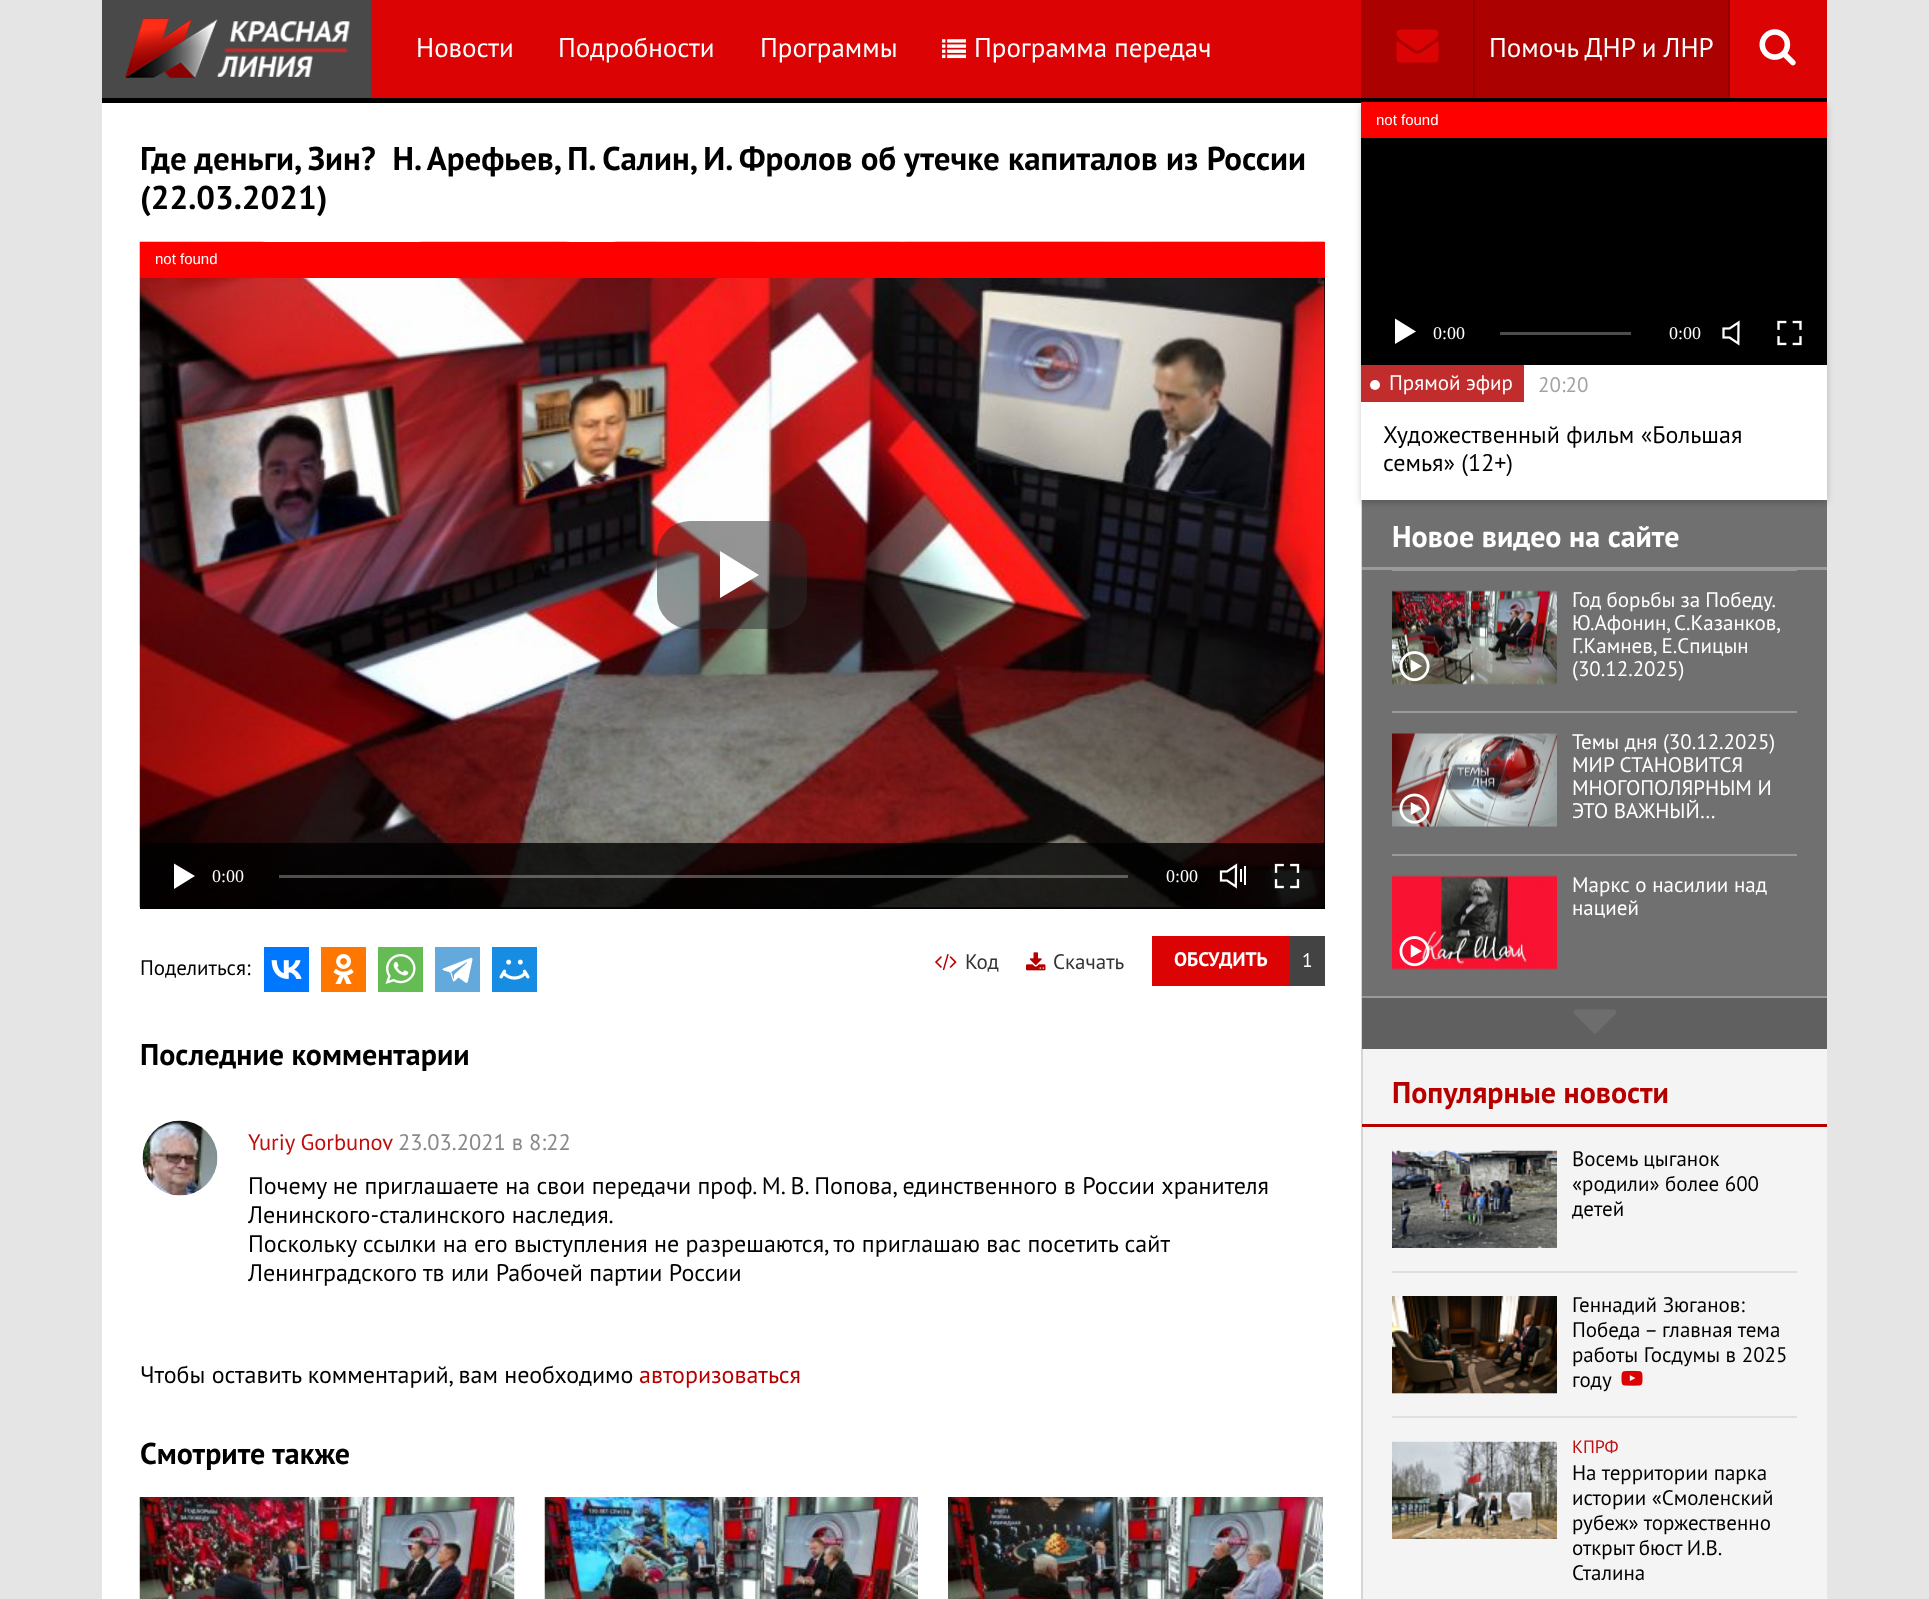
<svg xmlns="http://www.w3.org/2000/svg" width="1929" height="1599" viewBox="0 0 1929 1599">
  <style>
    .t1 { font: 27px PT Sans; fill: #fff; }
    .t2 { font: bold 33px PT Sans; fill: #000; }
    .t3 { font: 15px Liberation Sans; fill: #fff; }
    .t4 { font: 18px Liberation Serif; fill: #fff; }
    .t5 { font: 21px PT Sans; fill: #000; }
    .t6 { font: 21px PT Sans; fill: #333; }
    .t7 { font: bold 19.5px PT Sans; fill: #fff; }
    .t8 { font: 19.5px PT Sans; fill: #fff; }
    .t9 { font: bold 30px PT Sans; fill: #000; }
    .t10 { font: 22.5px PT Sans; fill: #bf0c0c; }
    .t11 { font: 22.5px PT Sans; fill: #898989; }
    .t12 { font: 24px PT Sans; fill: #000; }
    .t13 { font: 24px PT Sans; fill: #b60000; }
    .t14 { font: 21px PT Sans; fill: #fff; }
    .t15 { font: 21px PT Sans; fill: #a3a3a3; }
    .t16 { font: bold 30px PT Sans; fill: #fff; }
    .t17 { font: bold 30px PT Sans; fill: #b60000; }
    .t18 { font: 18px PT Sans; fill: #bf0c0c; }
  </style>
  <rect width="100%" height="100%" fill="#e5e5e5"/>
  <rect x="102" y="103" width="1259" height="1496" fill="#fff"/>
  <rect x="102" y="98" width="1725" height="5" fill="#000"/>
  <rect x="1361" y="500" width="2" height="1099" fill="#d6d5d5"/>
  <rect x="1362" y="500" width="465" height="496" fill="#707070"/>
  <rect x="1361" y="105" width="466" height="398" fill="#00000033" filter="blur(3px)"/>
  <rect x="371" y="0" width="1456" height="98" fill="#db0303"/>
  <rect x="102" y="0" width="269" height="98" fill="#494949"/>
  <image x="124" y="18" width="226" height="60" href="images/1.png"/>
  <text x="416" y="57" class="t1">Новости</text>
  <text x="558" y="57" class="t1">Подробности</text>
  <text x="760" y="57" class="t1">Программы</text>
  <image x="942" y="39" width="24" height="20" href="images/2.png"/>
  <text x="974" y="57" class="t1">Программа передач</text>
  <rect x="1361" y="0" width="367" height="98" fill="#ab0101"/>
  <rect x="1728" y="0" width="2" height="98" fill="#940000"/>
  <image x="1396" y="29" width="43" height="34" href="images/3.png"/>
  <rect x="1473" y="0" width="2" height="98" fill="#940000"/>
  <text x="1489" y="57" class="t1">Помочь ДНР и ЛНР</text>
  <image x="1759" y="29" width="37" height="37" href="images/4.png"/>
  <text x="140" y="170" class="t2" xml:space="preserve">Где деньги, Зин?  Н. Арефьев, П. Салин, И. Фролов об утечке капиталов из России</text>
  <text x="140" y="209" class="t2">(22.03.2021)</text>
  <rect x="140" y="278" width="1185" height="631" fill="#000"/>
  <image x="139" y="241" width="1186" height="667" href="images/5.png"/>
  <rect x="140" y="242" width="1185" height="36" fill="#f00"/>
  <text x="155" y="264" class="t3">not found</text>
  <rect x="657" y="521" width="150" height="108" rx="33" fill="#29292980"/>
  <path d="M720 551V598L759 575Z" fill="#fff"/>
  <rect x="140" y="843" width="1185" height="65" fill="#000000cc"/>
  <path d="M174 863.5V889L195 876Z" fill="#fff"/>
  <text x="212" y="882" class="t4">0:00</text>
  <rect x="279" y="875" width="849" height="3" fill="#ffffff4d"/>
  <text x="1166" y="882" class="t4">0:00</text>
  <image x="1219" y="863" width="27" height="26" href="images/6.png"/>
  <image x="1274" y="863" width="26" height="26" href="images/7.png"/>
  <text x="140" y="975" class="t5">Поделиться:</text>
  <rect x="264" y="947" width="45" height="45" fill="#07f"/>
  <image x="271" y="960" width="31" height="19" href="images/8.png"/>
  <rect x="321" y="947" width="45" height="45" fill="#f70"/>
  <image x="333" y="954" width="21" height="30" href="images/9.png"/>
  <rect x="378" y="947" width="45" height="45" fill="#65bc54"/>
  <image x="385" y="954" width="31" height="30" href="images/10.png"/>
  <rect x="435" y="947" width="45" height="45" fill="#64a9dc"/>
  <image x="442" y="957" width="31" height="26" href="images/11.png"/>
  <rect x="492" y="947" width="45" height="45" fill="#168de2"/>
  <image x="499" y="959" width="31" height="21" href="images/12.png"/>
  <image x="935" y="954" width="22" height="17" href="images/13.png"/>
  <text x="965" y="969" class="t6">Код</text>
  <image x="1026" y="952" width="20" height="19" href="images/14.png"/>
  <text x="1053" y="969" class="t6">Скачать</text>
  <rect x="1152" y="936" width="138" height="50" fill="#db0303"/>
  <text x="1174" y="966" class="t7">ОБСУДИТЬ</text>
  <rect x="1290" y="936" width="35" height="50" fill="#434343"/>
  <text x="1302" y="967" class="t8">1</text>
  <text x="140" y="1065" class="t9">Последние комментарии</text>
  <image x="142" y="1120" width="76" height="76" href="images/15.png"/>
  <text x="248" y="1150" class="t10">Yuriy Gorbunov</text>
  <text x="398" y="1150" class="t11">23.03.2021 в 8:22</text>
  <text x="248" y="1194" class="t12">Почему не приглашаете на свои передачи проф. М. В. Попова, единственного в России хранителя</text>
  <text x="248" y="1223" class="t12">Ленинского-сталинского наследия.</text>
  <text x="248" y="1252" class="t12">Поскольку ссылки на его выступления не разрешаются, то приглашаю вас посетить сайт</text>
  <text x="248" y="1281" class="t12">Ленинградского тв или Рабочей партии России</text>
  <text x="140" y="1383" class="t12">Чтобы оставить комментарий, вам необходимо</text>
  <text x="639" y="1383" class="t13">авторизоваться</text>
  <text x="140" y="1464" class="t9">Смотрите также</text>
  <image x="139" y="1497" width="376" height="102" href="images/16.png"/>
  <image x="544" y="1497" width="374" height="102" href="images/17.png"/>
  <image x="948" y="1497" width="375" height="102" href="images/18.png"/>
  <rect x="1361" y="365" width="466" height="135" fill="#fff"/>
  <rect x="1361" y="138" width="466" height="227" fill="#000"/>
  <rect x="1361" y="102" width="466" height="36" fill="#f00"/>
  <text x="1376" y="125" class="t3">not found</text>
  <path d="M1395 318.5V344L1416 331.5Z" fill="#fff"/>
  <text x="1433" y="339" class="t4">0:00</text>
  <rect x="1500" y="332" width="131" height="3" fill="#4d4d4d"/>
  <text x="1669" y="339" class="t4">0:00</text>
  <image x="1722" y="320" width="18" height="26" href="images/19.png"/>
  <image x="1777" y="320" width="25" height="26" href="images/20.png"/>
  <rect x="1361" y="365" width="163" height="37" fill="#c12c2c"/>
  <circle cx="1375" cy="385" r="5" fill="#fff"/>
  <text x="1389" y="390" class="t14">Прямой эфир</text>
  <text x="1538" y="392" class="t15">20:20</text>
  <text x="1383" y="443" class="t12">Художественный фильм «Большая</text>
  <text x="1383" y="471" class="t12">семья» (12+)</text>
  <rect x="1362" y="567" width="465" height="3" fill="#9b9999"/>
  <text x="1392" y="547" class="t16">Новое видео на сайте</text>
  <rect x="1392" y="570" width="405" height="1" fill="#9b9999"/>
  <rect x="1392" y="711" width="405" height="2" fill="#9b9999"/>
  <image x="1392" y="590" width="165" height="95" href="images/21.png"/>
  <image x="1399" y="651" width="31" height="31" href="images/22.png"/>
  <text x="1572" y="607" word-spacing="-0.5" class="t14">Год борьбы за Победу.</text>
  <text x="1572" y="630" word-spacing="-1" class="t14">Ю.Афонин, С.Казанков,</text>
  <text x="1572" y="653" class="t14">Г.Камнев, Е.Спицын</text>
  <text x="1572" y="676" class="t14">(30.12.2025)</text>
  <rect x="1392" y="854" width="405" height="2" fill="#9b9999"/>
  <image x="1392" y="733" width="165" height="94" href="images/23.png"/>
  <image x="1399" y="793" width="31" height="31" href="images/24.png"/>
  <text x="1572" y="749" class="t14">Темы дня (30.12.2025)</text>
  <text x="1572" y="772" class="t14">МИР СТАНОВИТСЯ</text>
  <text x="1572" y="795" class="t14">МНОГОПОЛЯРНЫМ И</text>
  <text x="1572" y="818" class="t14">ЭТО ВАЖНЫЙ…</text>
  <image x="1392" y="875" width="165" height="95" href="images/25.png"/>
  <image x="1399" y="936" width="31" height="31" href="images/26.png"/>
  <text x="1572" y="892" class="t14">Маркс о насилии над</text>
  <text x="1572" y="915" class="t14">нацией</text>
  <rect x="1362" y="998" width="465" height="51" fill="#606060"/>
  <rect x="1362" y="996" width="465" height="2" fill="#9b9999"/>
  <image x="1573" y="1009" width="43" height="25" href="images/27.png"/>
  <rect x="1363" y="1049" width="464" height="550" fill="#f4f4f4"/>
  <rect x="1362" y="1124" width="465" height="3" fill="#b60000"/>
  <text x="1392" y="1103" class="t17">Популярные новости</text>
  <image x="1392" y="1150" width="165" height="98" href="images/28.png"/>
  <text x="1572" y="1166" class="t5">Восемь цыганок</text>
  <text x="1572" y="1191" class="t5">«родили» более 600</text>
  <text x="1572" y="1216" class="t5">детей</text>
  <rect x="1392" y="1271" width="405" height="2" fill="#dfdfdf"/>
  <rect x="1392" y="1393" width="165" height="1" fill="#ededed"/>
  <image x="1392" y="1296" width="165" height="98" href="images/29.png"/>
  <text x="1572" y="1312" class="t5">Геннадий Зюганов:</text>
  <text x="1572" y="1337" class="t5">Победа – главная тема</text>
  <text x="1572" y="1362" class="t5">работы Госдумы в 2025</text>
  <text x="1572" y="1387" class="t5">году</text>
  <image x="1621" y="1370" width="22" height="16" href="images/30.png"/>
  <rect x="1392" y="1416" width="405" height="2" fill="#dfdfdf"/>
  <image x="1392" y="1441" width="165" height="98" href="images/31.png"/>
  <text x="1572" y="1453" class="t18">КПРФ</text>
  <text x="1572" y="1480" class="t5">На территории парка</text>
  <text x="1572" y="1505" class="t5">истории «Смоленский</text>
  <text x="1572" y="1530" class="t5">рубеж» торжественно</text>
  <text x="1572" y="1555" word-spacing="-1" class="t5">открыт бюст И.В.</text>
  <text x="1572" y="1580" class="t5">Сталина</text>
</svg>
